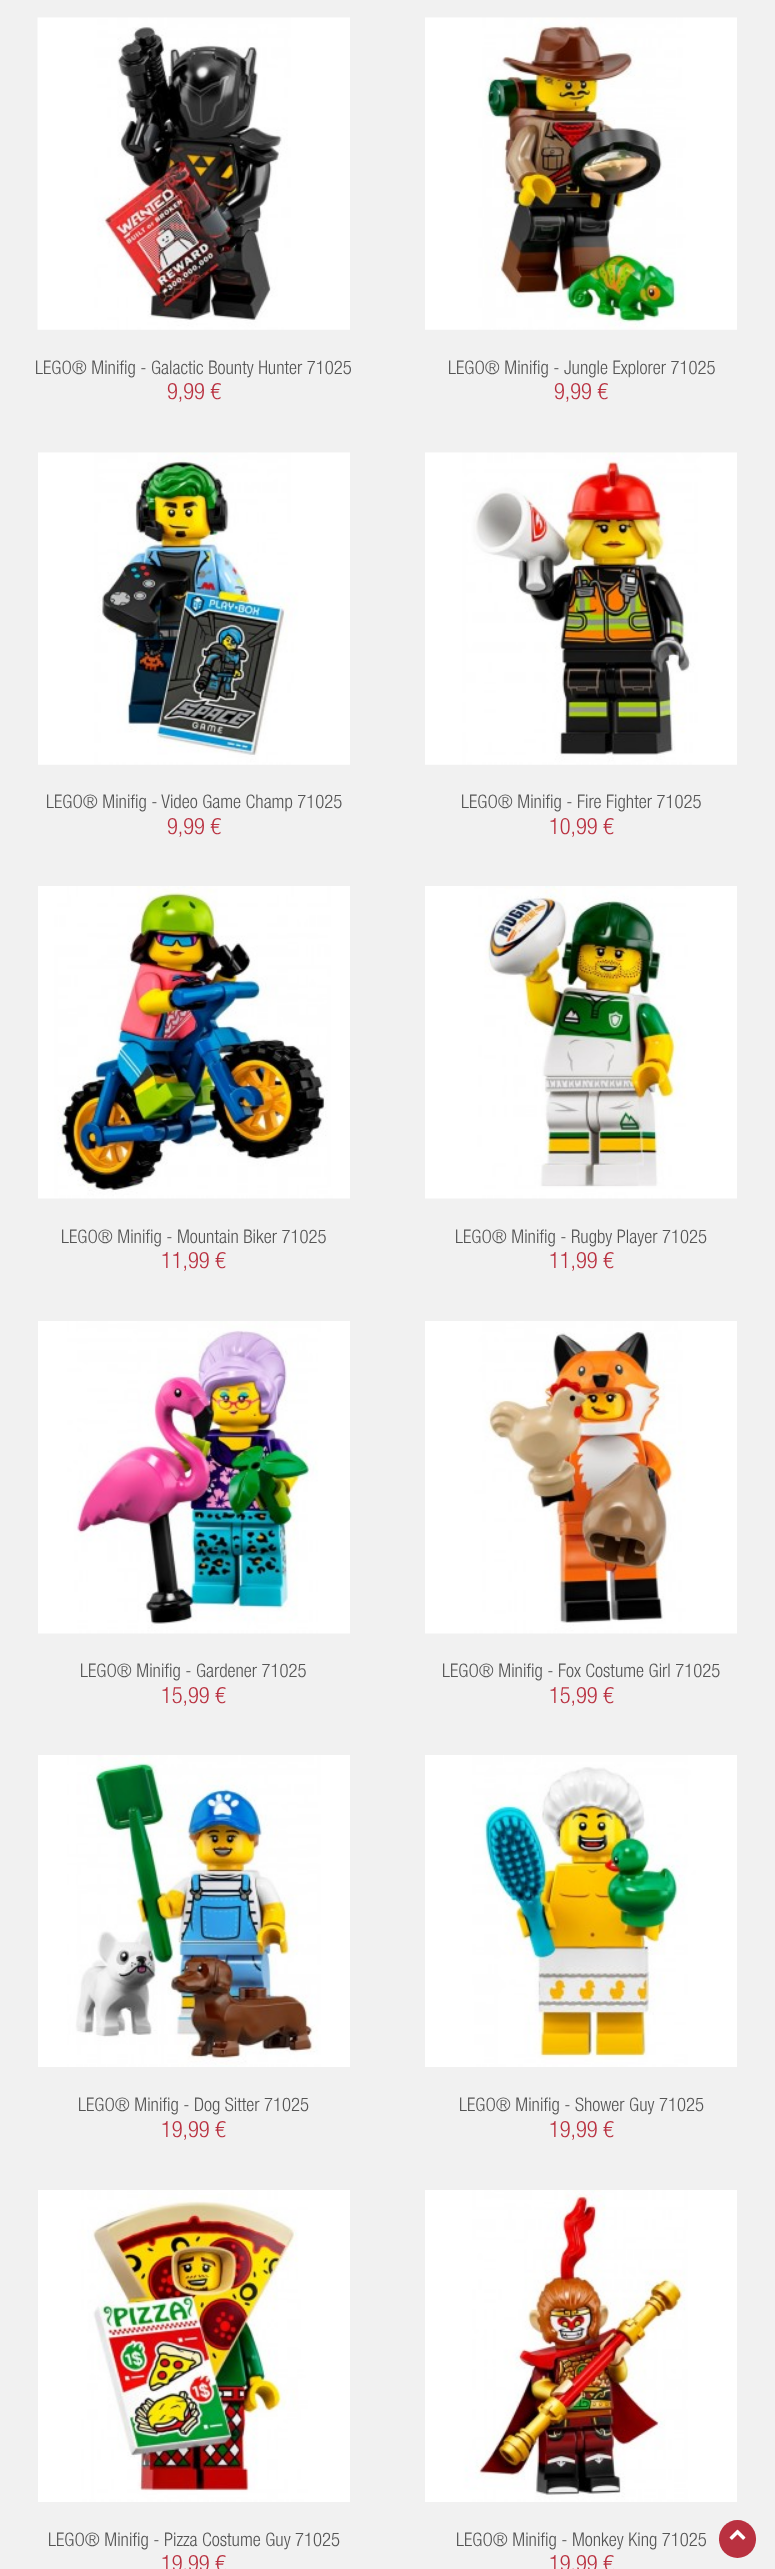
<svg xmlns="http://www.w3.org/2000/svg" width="775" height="2569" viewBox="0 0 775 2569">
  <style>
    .t1 { font: 300 18.75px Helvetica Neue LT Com; fill: #555; }
    .t2 { font: 300 22.5px Helvetica Neue LT Com; fill: #b93140; }
  </style>
  <rect width="100%" height="100%" fill="#f1f1f1"/>
  <image x="37" y="17" width="313" height="313" href="images/1.png"/>
  <text x="35" y="374" class="t1">LEGO® Minifig - Galactic Bounty Hunter 71025</text>
  <text x="167" y="399" class="t2">9,99 €</text>
  <image x="425" y="17" width="312" height="313" href="images/2.png"/>
  <text x="448" y="374" class="t1">LEGO® Minifig - Jungle Explorer 71025</text>
  <text x="554" y="399" class="t2">9,99 €</text>
  <image x="38" y="452" width="312" height="313" href="images/3.png"/>
  <text x="46" y="808" class="t1">LEGO® Minifig - Video Game Champ 71025</text>
  <text x="167" y="834" class="t2">9,99 €</text>
  <image x="425" y="452" width="312" height="313" href="images/4.png"/>
  <text x="461" y="808" class="t1">LEGO® Minifig - Fire Fighter 71025</text>
  <text x="549" y="834" class="t2">10,99 €</text>
  <image x="38" y="886" width="312" height="313" href="images/5.png"/>
  <text x="61" y="1243" class="t1">LEGO® Minifig - Mountain Biker 71025</text>
  <text x="161" y="1268" class="t2">11,99 €</text>
  <image x="425" y="886" width="312" height="313" href="images/6.png"/>
  <text x="455" y="1243" class="t1">LEGO® Minifig - Rugby Player 71025</text>
  <text x="549" y="1268" class="t2">11,99 €</text>
  <image x="38" y="1321" width="312" height="313" href="images/7.png"/>
  <text x="80" y="1677" class="t1">LEGO® Minifig - Gardener 71025</text>
  <text x="161" y="1703" class="t2">15,99 €</text>
  <image x="425" y="1321" width="312" height="313" href="images/8.png"/>
  <text x="442" y="1677" class="t1">LEGO® Minifig - Fox Costume Girl 71025</text>
  <text x="549" y="1703" class="t2">15,99 €</text>
  <image x="38" y="1755" width="312" height="312" href="images/9.png"/>
  <text x="78" y="2111" class="t1">LEGO® Minifig - Dog Sitter 71025</text>
  <text x="161" y="2137" class="t2">19,99 €</text>
  <image x="425" y="1755" width="312" height="312" href="images/10.png"/>
  <text x="459" y="2111" class="t1">LEGO® Minifig - Shower Guy 71025</text>
  <text x="549" y="2137" class="t2">19,99 €</text>
  <image x="38" y="2190" width="312" height="312" href="images/11.png"/>
  <text x="48" y="2546" class="t1">LEGO® Minifig - Pizza Costume Guy 71025</text>
  <text x="161" y="2571" class="t2">19,99 €</text>
  <image x="425" y="2190" width="312" height="312" href="images/12.png"/>
  <text x="456" y="2546" class="t1">LEGO® Minifig - Monkey King 71025</text>
  <text x="549" y="2571" class="t2">19,99 €</text>
  <rect x="719" y="2520" width="37" height="38" rx="18.5" fill="#b93140"/>
  <image x="729" y="2529" width="17" height="11" href="images/13.png"/>
</svg>
